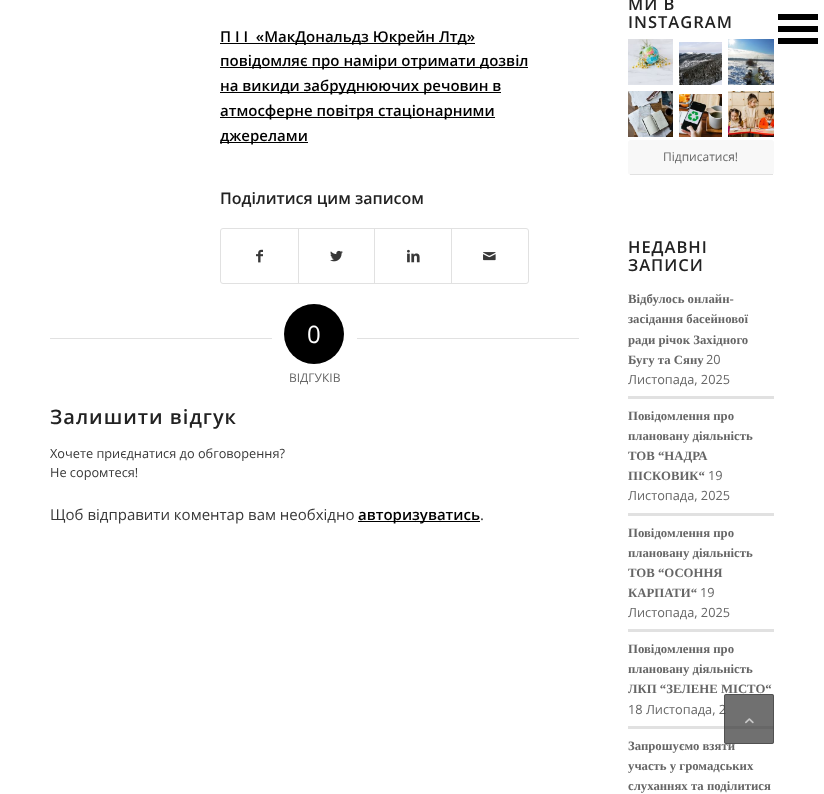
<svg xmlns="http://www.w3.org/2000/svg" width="824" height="794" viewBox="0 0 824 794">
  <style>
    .t1 { font: 600 15px Open Sans; fill: #000; }
    .t2 { font: 600 16px Open Sans; fill: #222; }
    .t3 { font: 24px Open Sans; fill: #fff; }
    .t4 { font: 12px Open Sans; fill: #666; }
    .t5 { font: 600 20px Open Sans; letter-spacing: 1px; fill: #222; }
    .t6 { font: 12.75px Open Sans; fill: #383838; }
    .t7 { font: 15px Open Sans; fill: #383838; }
    .t8 { font: 600 16.5px Open Sans; letter-spacing: 1px; fill: #222; }
    .t9 { font: bold 12.75px Liberation Serif; fill: #666; }
    .t10 { font: 12.75px Open Sans; fill: #666; }
  </style>
  <rect width="100%" height="100%" fill="#fff"/>
  <rect x="220" y="43" width="255" height="1" fill="#000"/>
  <text x="220" y="42" class="t1" xml:space="preserve">П І І  «МакДональдз Юкрейн Лтд»</text>
  <rect x="220" y="67" width="308" height="1" fill="#000"/>
  <text x="220" y="66" class="t1">повідомляє про наміри отримати дозвіл</text>
  <rect x="220" y="92" width="281" height="1" fill="#000"/>
  <text x="220" y="91" class="t1">на викиди забруднюючих речовин в</text>
  <rect x="220" y="117" width="275" height="1" fill="#000"/>
  <text x="220" y="116" class="t1">атмосферне повітря стаціонарними</text>
  <rect x="220" y="142" width="88" height="1" fill="#000"/>
  <text x="220" y="141" class="t1">джерелами</text>
  <text x="220" y="204" class="t2">Поділитися цим записом</text>
  <rect x="220.5" y="228.5" width="308" height="55" rx="2.5" fill="none" stroke="#e1e1e1"/>
  <image x="256" y="249" width="7" height="14" href="images/1.png"/>
  <rect x="298" y="229" width="1" height="54" fill="#e1e1e1"/>
  <image x="330" y="250" width="13" height="12" href="images/2.png"/>
  <rect x="374" y="229" width="1" height="54" fill="#e1e1e1"/>
  <image x="407" y="249" width="13" height="14" href="images/3.png"/>
  <rect x="451" y="229" width="1" height="54" fill="#e1e1e1"/>
  <image x="483" y="252" width="13" height="9" href="images/4.png"/>
  <rect x="50" y="338" width="222" height="1" fill="#e1e1e1"/>
  <circle cx="314" cy="334" r="30" fill="#000"/>
  <text x="307" y="343" class="t3">0</text>
  <rect x="357" y="338" width="222" height="1" fill="#e1e1e1"/>
  <text x="289" y="382" class="t4">ВІДГУКІВ</text>
  <text x="50" y="424" class="t5">Залишити відгук</text>
  <text x="50" y="458" class="t6">Хочете приєднатися до обговорення?</text>
  <text x="50" y="477" class="t6">Не соромтеся!</text>
  <text x="50" y="520" class="t7">Щоб відправити коментар вам необхідно</text>
  <rect x="358" y="521" width="122" height="1" fill="#000"/>
  <text x="358" y="520" class="t1">авторизуватись</text>
  <text x="480" y="520" class="t7">.</text>
  <text x="628" y="10" class="t8">МИ В</text>
  <text x="628" y="28" class="t8">INSTAGRAM</text>
  <image x="628" y="39" width="45" height="46" href="images/5.png"/>
  <image x="679" y="42" width="43" height="43" href="images/6.png"/>
  <image x="728" y="39" width="46" height="46" href="images/7.png"/>
  <image x="628" y="91" width="45" height="46" href="images/8.png"/>
  <image x="679" y="94" width="43" height="43" href="images/9.png"/>
  <image x="728" y="91" width="46" height="46" href="images/10.png"/>
  <rect x="628" y="140" width="146" height="35" rx="3" fill="#f8f8f8"/>
  <rect x="630" y="174" width="143" height="1" fill="#e1e1e1"/>
  <text x="663" y="161" class="t4">Підписатися!</text>
  <text x="628" y="253" class="t8">НЕДАВНІ</text>
  <text x="628" y="271" class="t8">ЗАПИСИ</text>
  <text x="628" y="303" class="t9">Відбулось онлайн-</text>
  <text x="628" y="323" class="t9">засідання басейнової</text>
  <text x="628" y="344" class="t9">ради річок Західного</text>
  <text x="628" y="364" class="t9">Бугу та Сяну</text>
  <text x="706" y="364" class="t10">20</text>
  <text x="628" y="384" class="t10">Листопада, 2025</text>
  <rect x="628" y="396" width="146" height="3" fill="#e1e1e1"/>
  <text x="628" y="420" class="t9">Повідомлення про</text>
  <text x="628" y="440" class="t9">плановану діяльність</text>
  <text x="628" y="460" class="t9">ТОВ “НАДРА</text>
  <text x="628" y="480" class="t9">ПІСКОВИК“</text>
  <text x="708" y="480" class="t10">19</text>
  <text x="628" y="500" class="t10">Листопада, 2025</text>
  <rect x="628" y="513" width="146" height="3" fill="#e1e1e1"/>
  <text x="628" y="537" class="t9">Повідомлення про</text>
  <text x="628" y="557" class="t9">плановану діяльність</text>
  <text x="628" y="577" class="t9">ТОВ “ОСОННЯ</text>
  <text x="628" y="597" class="t9">КАРПАТИ“</text>
  <text x="700" y="597" class="t10">19</text>
  <text x="628" y="617" class="t10">Листопада, 2025</text>
  <rect x="628" y="629" width="146" height="3" fill="#e1e1e1"/>
  <text x="628" y="653" class="t9">Повідомлення про</text>
  <text x="628" y="673" class="t9">плановану діяльність</text>
  <text x="628" y="693" class="t9">ЛКП “ЗЕЛЕНЕ МІСТО“</text>
  <text x="628" y="714" class="t10">18 Листопада, 2</text>
  <rect x="628" y="726" width="146" height="3" fill="#e1e1e1"/>
  <text x="628" y="750" class="t9">Запрошуємо взяти</text>
  <text x="628" y="770" class="t9">участь у громадських</text>
  <text x="628" y="790" class="t9">слуханнях та поділитися</text>
  <path d="M818 20V14H778V20ZM818 32V26H778V32ZM818 44V38H778V44Z" fill="#000"/>
  <rect x="724" y="694" width="50" height="50" rx="2" fill="#333333b3"/>
  <rect x="724.5" y="694.5" width="49" height="49" rx="1.5" fill="none" stroke="#444444b3"/>
  <image x="745" y="718" width="9" height="6" href="images/11.png"/>
</svg>
